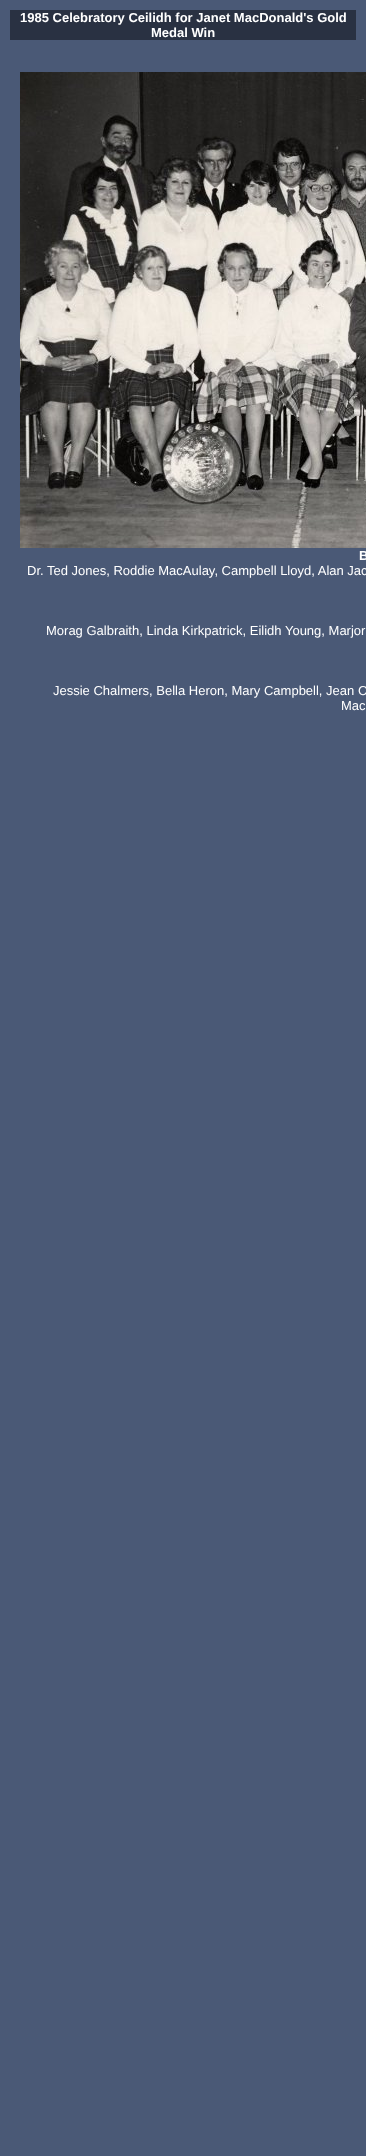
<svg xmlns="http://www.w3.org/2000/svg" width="366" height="2156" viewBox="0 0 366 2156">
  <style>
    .t1 { font: bold 13px Liberation Sans; fill: #fff; }
    .t2 { font: 13px Liberation Sans; fill: #fff; }
  </style>
  <rect width="100%" height="100%" fill="#4a5976"/>
  <rect x="10" y="10" width="346" height="30" fill="#293142"/>
  <text x="20" y="22" class="t1">1985 Celebratory Ceilidh for Janet MacDonald's Gold</text>
  <text x="151" y="37" class="t1">Medal Win</text>
  <image x="20" y="72" width="346" height="476" href="images/1.png"/>
  <text x="359" y="560" class="t1">B</text>
  <text x="27" y="575" class="t2">Dr. Ted Jones, Roddie MacAulay, Campbell Lloyd, Alan Jac</text>
  <text x="46" y="635" class="t2">Morag Galbraith, Linda Kirkpatrick, Eilidh Young, Marjor</text>
  <text x="53" y="695" class="t2">Jessie Chalmers, Bella Heron, Mary Campbell, Jean C</text>
  <text x="341" y="710" class="t2">Mac</text>
</svg>
